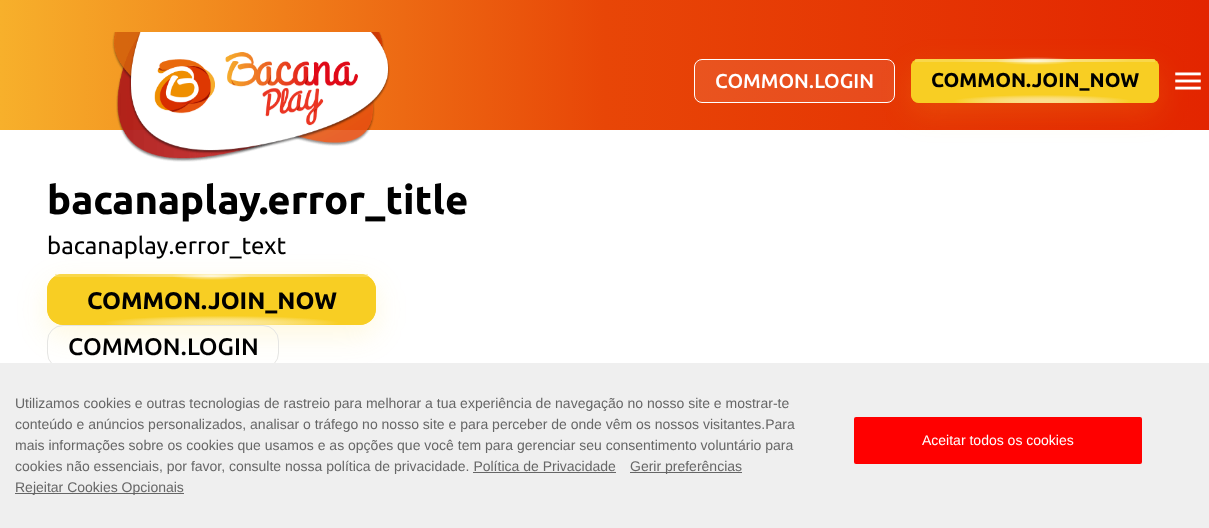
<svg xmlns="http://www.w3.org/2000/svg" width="1209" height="528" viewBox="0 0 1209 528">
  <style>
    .t1 { font: 500 20px Ubuntu; fill: #fff; }
    .t2 { font: bold 20px Ubuntu; fill: #000; }
    .t3 { font: bold 40px Ubuntu; fill: #000; }
    .t4 { font: 24px Ubuntu; fill: #000; }
    .t5 { font: bold 24px Ubuntu; fill: #000; }
    .t6 { font: 500 24px Ubuntu; fill: #000; }
    .t7 { font: 14px Liberation Sans; fill: #666; }
    .t8 { font: 14px Liberation Sans; fill: #fff; }
  </style>
  <defs>
    <linearGradient id="g1" gradientUnits="userSpaceOnUse" x1="0" y1="65" x2="1209" y2="65"><stop offset="0" stop-color="#f7b02b"/><stop offset="0.5" stop-color="#e84607"/><stop offset="1" stop-color="#e32500"/></linearGradient>
    <clipPath id="clip1"><path d="M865 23H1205V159H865ZM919 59H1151C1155.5 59 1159 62.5 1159 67V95C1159 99.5 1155.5 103 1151 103H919C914.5 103 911 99.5 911 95V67C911 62.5 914.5 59 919 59Z" clip-rule="evenodd"/></clipPath>
    <clipPath id="clip2"><rect x="911" y="59" width="248" height="44" rx="8"/></clipPath>
    <radialGradient id="g2" gradientUnits="userSpaceOnUse" cx="0" cy="0" r="1" gradientTransform="matrix(89 0 0 6.1 1042 60)"><stop offset="0" stop-color="#fff" stop-opacity="0.5"/><stop offset="1" stop-color="#f8ce23"/></radialGradient>
    <radialGradient id="g3" gradientUnits="userSpaceOnUse" cx="0" cy="0" r="1" gradientTransform="matrix(89 0 0 6.1 1042 101)"><stop offset="0" stop-color="#fff" stop-opacity="0.5"/><stop offset="1" stop-color="#f8ce23"/></radialGradient>
    <clipPath id="clip3"><path d="M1 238H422V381H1ZM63 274H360C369 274 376 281 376 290V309C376 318 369 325 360 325H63C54 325 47 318 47 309V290C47 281 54 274 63 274Z" clip-rule="evenodd"/></clipPath>
    <clipPath id="clip4"><rect x="47" y="274" width="329" height="51" rx="16"/></clipPath>
    <radialGradient id="g4" gradientUnits="userSpaceOnUse" cx="0" cy="0" r="1" gradientTransform="matrix(118 0 0 7.2 221 275)"><stop offset="0" stop-color="#fff" stop-opacity="0.5"/><stop offset="1" stop-color="#f8ce23"/></radialGradient>
    <radialGradient id="g5" gradientUnits="userSpaceOnUse" cx="0" cy="0" r="1" gradientTransform="matrix(118 0 0 7.2 221 323)"><stop offset="0" stop-color="#fff" stop-opacity="0.5"/><stop offset="1" stop-color="#f8ce23"/></radialGradient>
  </defs>
  <rect width="100%" height="100%" fill="#fff"/>
  <rect x="0" y="0" width="1209" height="130" fill="url(#g1)"/>
  <image x="112" y="32" width="278" height="130" href="images/1.png"/>
  <rect x="694.5" y="59.5" width="200" height="43" rx="7.5" fill="#ffffff1a" stroke="#fff"/>
  <text x="715" y="88" class="t1">COMMON.LOGIN</text>
  <image x="1175" y="72" width="26" height="18" href="images/3.png"/>
  <g clip-path="url(#clip1)">
    <rect x="911" y="69" width="248" height="44" rx="8" fill="#f8ce2326" filter="blur(15px)"/>
  </g>
  <rect x="911" y="59" width="248" height="44" rx="8" fill="#f8ce23e6"/>
  <g clip-path="url(#clip2)">
    <rect x="911" y="59" width="248" height="3" fill="url(#g2)"/>
    <path d="M911 62H1159V95C1159 99.5 1155.5 103 1151 103H919C914.5 103 911 99.5 911 95Z" fill="url(#g3)"/>
  </g>
  <rect x="915" y="59" width="240" height="3" fill="#fadf6f80"/>
  <image x="997" y="57" width="76" height="8" href="images/2.png"/>
  <text x="931" y="87" class="t2">COMMON.JOIN_NOW</text>
  <text x="47" y="214" class="t3">bacanaplay.error_title</text>
  <text x="47" y="254" class="t4">bacanaplay.error_text</text>
  <g clip-path="url(#clip3)">
    <rect x="47" y="284" width="329" height="51" rx="16" fill="#f8ce2326" filter="blur(15px)"/>
  </g>
  <rect x="47" y="274" width="329" height="51" rx="16" fill="#f8ce23e6"/>
  <g clip-path="url(#clip4)">
    <rect x="47" y="274" width="329" height="3" fill="url(#g4)"/>
    <path d="M47 277H376V309C376 318 369 325 360 325H63C54 325 47 318 47 309Z" fill="url(#g5)"/>
  </g>
  <rect x="55" y="274" width="313" height="3" fill="#fadf6f80"/>
  <image x="173" y="274" width="76" height="6" href="images/4.png"/>
  <text x="87" y="309" class="t5">COMMON.JOIN_NOW</text>
  <rect x="47.5" y="325.5" width="231" height="43" rx="15.5" fill="none" stroke="#e5e5e3"/>
  <text x="68" y="355" class="t6">COMMON.LOGIN</text>
  <rect x="0" y="363" width="1209" height="165" fill="#efefef"/>
  <text x="15" y="408" class="t7">Utilizamos cookies e outras tecnologias de rastreio para melhorar a tua experiência de navegação no nosso site e mostrar-te</text>
  <text x="15" y="429" class="t7">conteúdo e anúncios personalizados, analisar o tráfego no nosso site e para perceber de onde vêm os nossos visitantes.Para</text>
  <text x="15" y="450" class="t7">mais informações sobre os cookies que usamos e as opções que você tem para gerenciar seu consentimento voluntário para</text>
  <text x="15" y="471" class="t7">cookies não essenciais, por favor, consulte nossa política de privacidade. Política de Privacidade</text>
  <rect x="630" y="472" width="112" height="1" fill="#666"/>
  <text x="630" y="471" class="t7">Gerir preferências</text>
  <rect x="473" y="472" width="143" height="1" fill="#666"/>
  <rect x="15" y="493" width="169" height="1" fill="#666"/>
  <text x="15" y="492" class="t7">Rejeitar Cookies Opcionais</text>
  <rect x="854" y="417" width="288" height="47" rx="2" fill="#f00"/>
  <text x="922" y="445" class="t8">Aceitar todos os cookies</text>
</svg>
